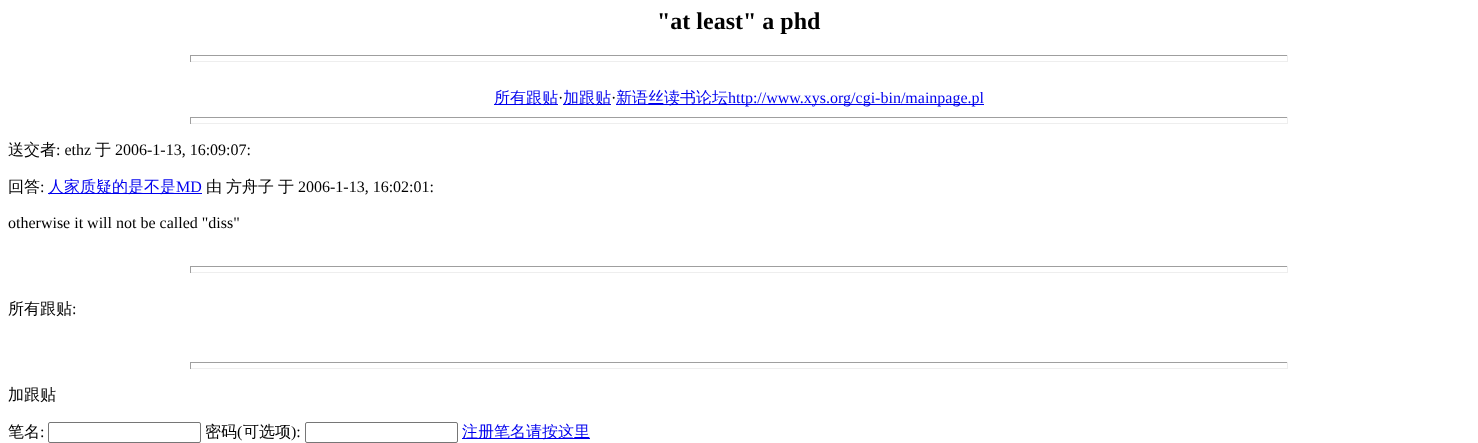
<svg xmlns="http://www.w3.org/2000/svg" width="1478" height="443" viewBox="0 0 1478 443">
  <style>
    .t1 { font: bold 24px Liberation Serif; fill: #000; }
    .t2 { font: 500 16px WenQuanYi Zen Hei; fill: #00e; }
    .t3 { font: 16px Liberation Serif; fill: #000; }
    .t4 { font: 16px Liberation Serif; fill: #00e; }
    .t5 { font: 500 16px WenQuanYi Zen Hei; fill: #000; }
  </style>
  <rect width="100%" height="100%" fill="#fff"/>
  <text x="657" y="29" class="t1">"at least" a phd</text>
  <rect x="190" y="55" width="1098" height="1" fill="#9f9f9f"/>
  <rect x="1287" y="55" width="1" height="7" fill="#eee"/>
  <rect x="190" y="61" width="1098" height="1" fill="#eee"/>
  <rect x="190" y="55" width="1" height="7" fill="#9f9f9f"/>
  <rect x="494" y="104" width="64" height="1" fill="#00e"/>
  <text x="494" y="103" class="t2">所有跟贴</text>
  <text x="558" y="103" class="t3">·</text>
  <rect x="563" y="104" width="48" height="1" fill="#00e"/>
  <text x="563" y="103" class="t2">加跟贴</text>
  <text x="611" y="103" class="t3">·</text>
  <rect x="616" y="104" width="368" height="1" fill="#00e"/>
  <text x="616" y="103" class="t2">新语丝读书论坛</text>
  <text x="728" y="103" class="t4">http://www.xys.org/cgi-bin/mainpage.pl</text>
  <rect x="190" y="117" width="1098" height="1" fill="#9f9f9f"/>
  <rect x="1287" y="117" width="1" height="7" fill="#eee"/>
  <rect x="190" y="123" width="1098" height="1" fill="#eee"/>
  <rect x="190" y="117" width="1" height="7" fill="#9f9f9f"/>
  <text x="8" y="155" class="t5">送交者</text>
  <text x="56" y="155" class="t3">: ethz</text>
  <text x="95" y="155" class="t5">于</text>
  <text x="115" y="155" class="t3">2006-1-13, 16:09:07:</text>
  <text x="8" y="192" class="t5">回答</text>
  <text x="40" y="192" class="t3">:</text>
  <rect x="48" y="193" width="154" height="1" fill="#00e"/>
  <text x="48" y="192" class="t2">人家质疑的是不是</text>
  <text x="176" y="192" class="t4">MD</text>
  <text x="206" y="192" class="t5">由</text>
  <text x="226" y="192" class="t5">方舟子</text>
  <text x="278" y="192" class="t5">于</text>
  <text x="298" y="192" class="t3">2006-1-13, 16:02:01:</text>
  <text x="8" y="228" class="t3">otherwise it will not be called "diss"</text>
  <rect x="190" y="266" width="1098" height="1" fill="#9f9f9f"/>
  <rect x="1287" y="266" width="1" height="7" fill="#eee"/>
  <rect x="190" y="272" width="1098" height="1" fill="#eee"/>
  <rect x="190" y="266" width="1" height="7" fill="#9f9f9f"/>
  <text x="8" y="314" class="t5">所有跟贴</text>
  <text x="72" y="314" class="t3">:</text>
  <rect x="190" y="362" width="1098" height="1" fill="#9f9f9f"/>
  <rect x="1287" y="362" width="1" height="7" fill="#eee"/>
  <rect x="190" y="368" width="1098" height="1" fill="#eee"/>
  <rect x="190" y="362" width="1" height="7" fill="#9f9f9f"/>
  <text x="8" y="400" class="t5">加跟贴</text>
  <text x="8" y="437" class="t5">笔名</text>
  <text x="40" y="437" class="t3">:</text>
  <rect x="48.5" y="422.5" width="152" height="20" rx="1.5" fill="none" stroke="#767676"/>
  <text x="205" y="437" class="t5">密码</text>
  <text x="237" y="437" class="t3">(</text>
  <text x="243" y="437" class="t5">可选项</text>
  <text x="291" y="437" class="t3">):</text>
  <rect x="305.5" y="422.5" width="152" height="20" rx="1.5" fill="none" stroke="#767676"/>
  <rect x="462" y="438" width="128" height="1" fill="#00e"/>
  <text x="462" y="437" class="t2">注册笔名请按这里</text>
</svg>
